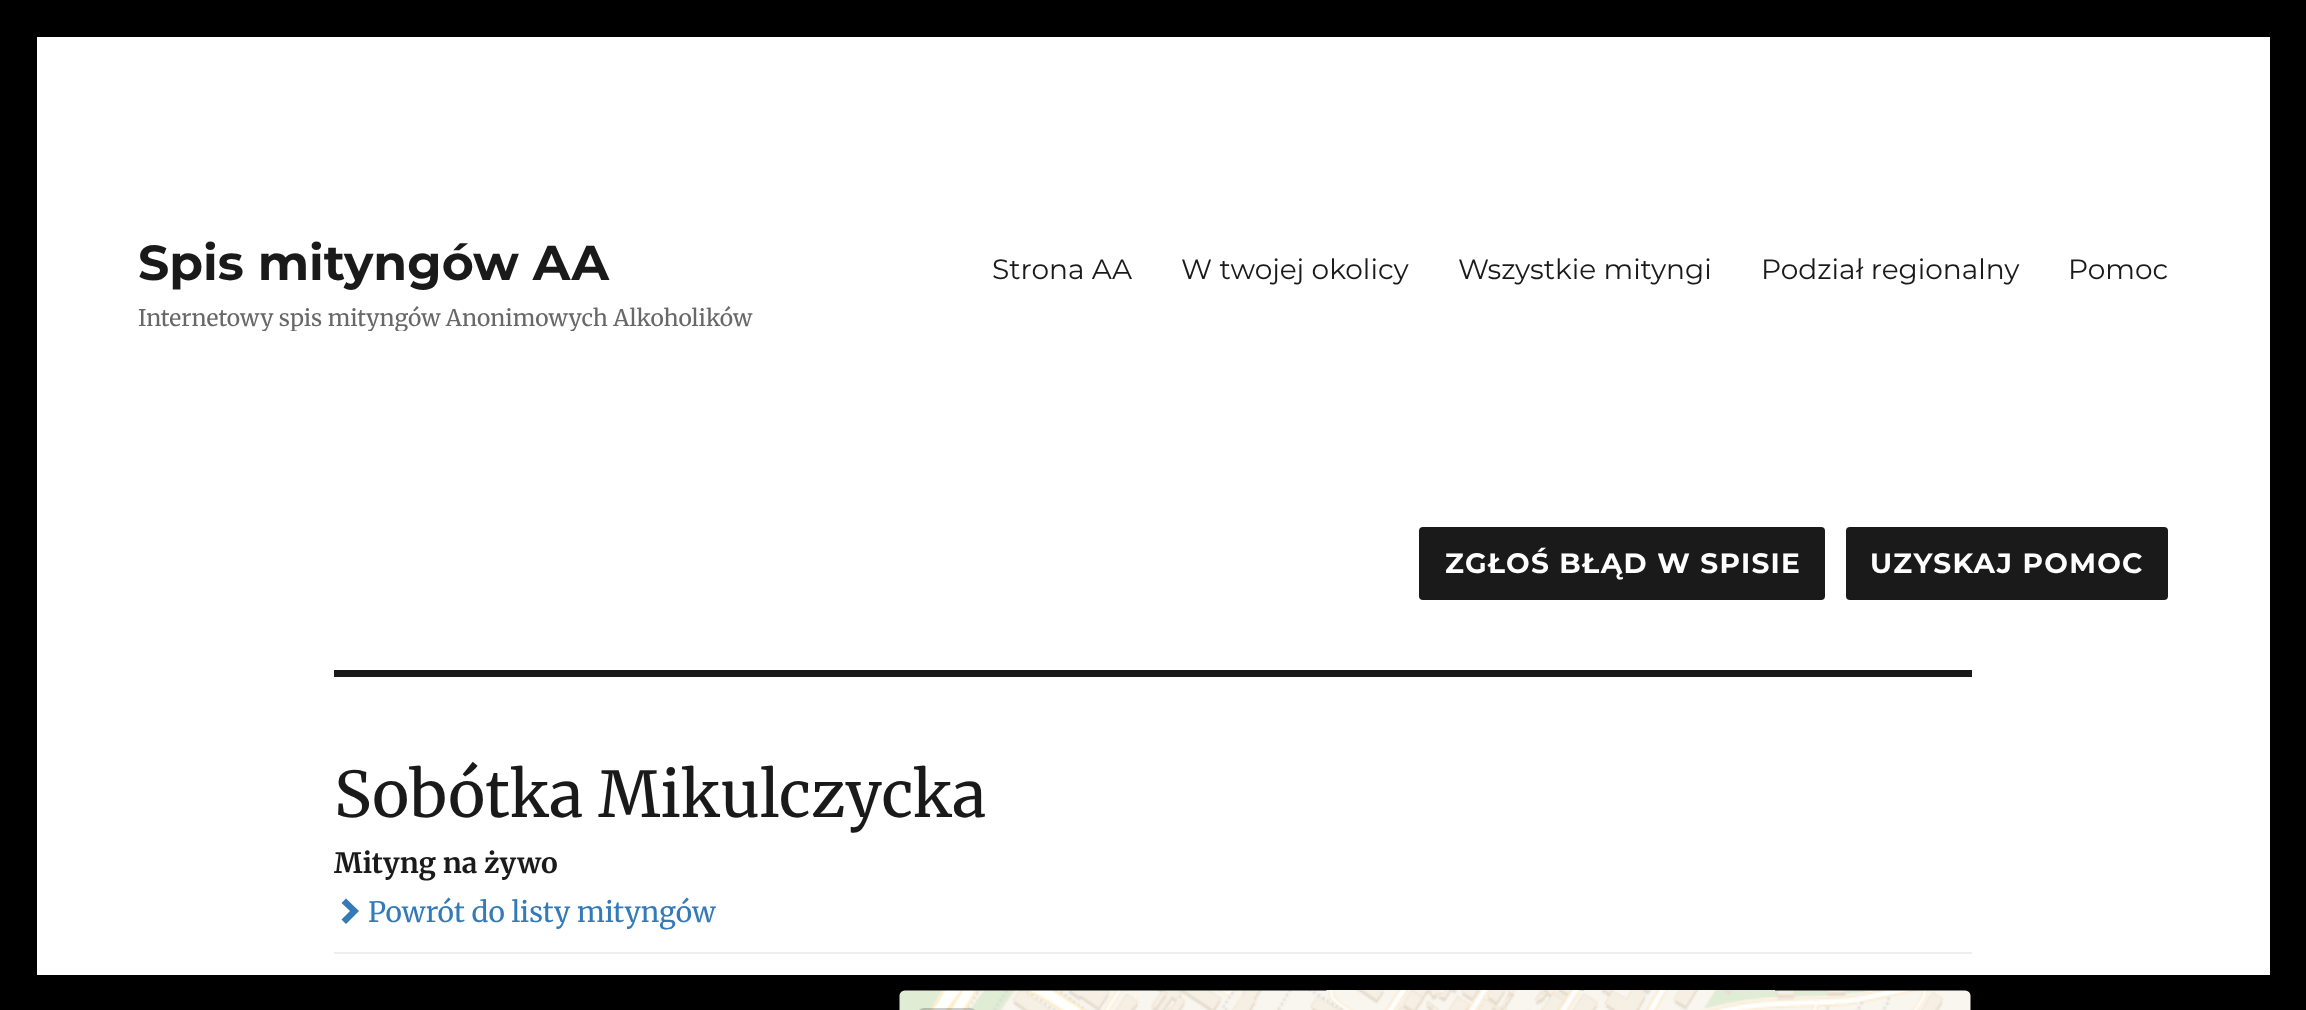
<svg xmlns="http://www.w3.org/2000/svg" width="2306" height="1010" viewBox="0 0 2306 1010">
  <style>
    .t1 { font: bold 49px Montserrat; fill: #1a1a1a; }
    .t2 { font: 22.75px Merriweather; fill: #686868; }
    .t3 { font: 28px Montserrat; fill: #1a1a1a; }
    .t4 { font: bold 28px Montserrat; letter-spacing: 1.3px; fill: #fff; }
    .t5 { font: 63px Merriweather; fill: #1a1a1a; }
    .t6 { font: bold 28px Merriweather; fill: #1a1a1a; }
    .t7 { font: 28px Merriweather; fill: #337ab7; }
  </style>
  <defs>
    <clipPath id="clip1"><rect x="138" y="233" width="615" height="98"/></clipPath>
  </defs>
  <rect width="100%" height="100%" fill="#000"/>
  <rect x="37" y="37" width="2233" height="938" fill="#fff"/>
  <text x="138" y="280" class="t1">Spis mityngów AA</text>
  <g clip-path="url(#clip1)">
    <text x="138" y="326" class="t2">Internetowy spis mityngów Anonimowych Alkoholików</text>
  </g>
  <text x="992" y="279" class="t3">Strona AA</text>
  <text x="1181" y="279" class="t3">W twojej okolicy</text>
  <text x="1458" y="279" class="t3">Wszystkie mityngi</text>
  <text x="1761" y="279" class="t3">Podział regionalny</text>
  <text x="2068" y="279" class="t3">Pomoc</text>
  <rect x="1419" y="527" width="406" height="73" rx="4" fill="#1a1a1a"/>
  <text x="1445" y="573" class="t4">ZGŁOŚ BŁĄD W SPISIE</text>
  <rect x="1846" y="527" width="322" height="73" rx="4" fill="#1a1a1a"/>
  <text x="1870" y="573" class="t4">UZYSKAJ POMOC</text>
  <rect x="334" y="670" width="1638" height="7" fill="#1a1a1a"/>
  <rect x="334" y="952" width="1638" height="2" fill="#eee"/>
  <text x="334" y="817" class="t5">Sobótka Mikulczycka</text>
  <text x="334" y="873" class="t6">Mityng na żywo</text>
  <path d="M359 911L346 924L341.5 919.5L350 911L341.5 903L346 898.5Z" fill="#337ab7"/>
  <text x="368" y="922" class="t7">Powrót do listy mityngów</text>
  <image x="1326" y="990" width="449" height="20" href="images/2.png"/>
  <image x="899" y="990" width="428" height="20" href="images/1.png"/>
  <image x="1775" y="990" width="196" height="20" href="images/3.png"/>
  <rect x="919" y="1010" width="56" height="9" rx="5" fill="none" stroke="#00000033" stroke-width="4"/>
</svg>
